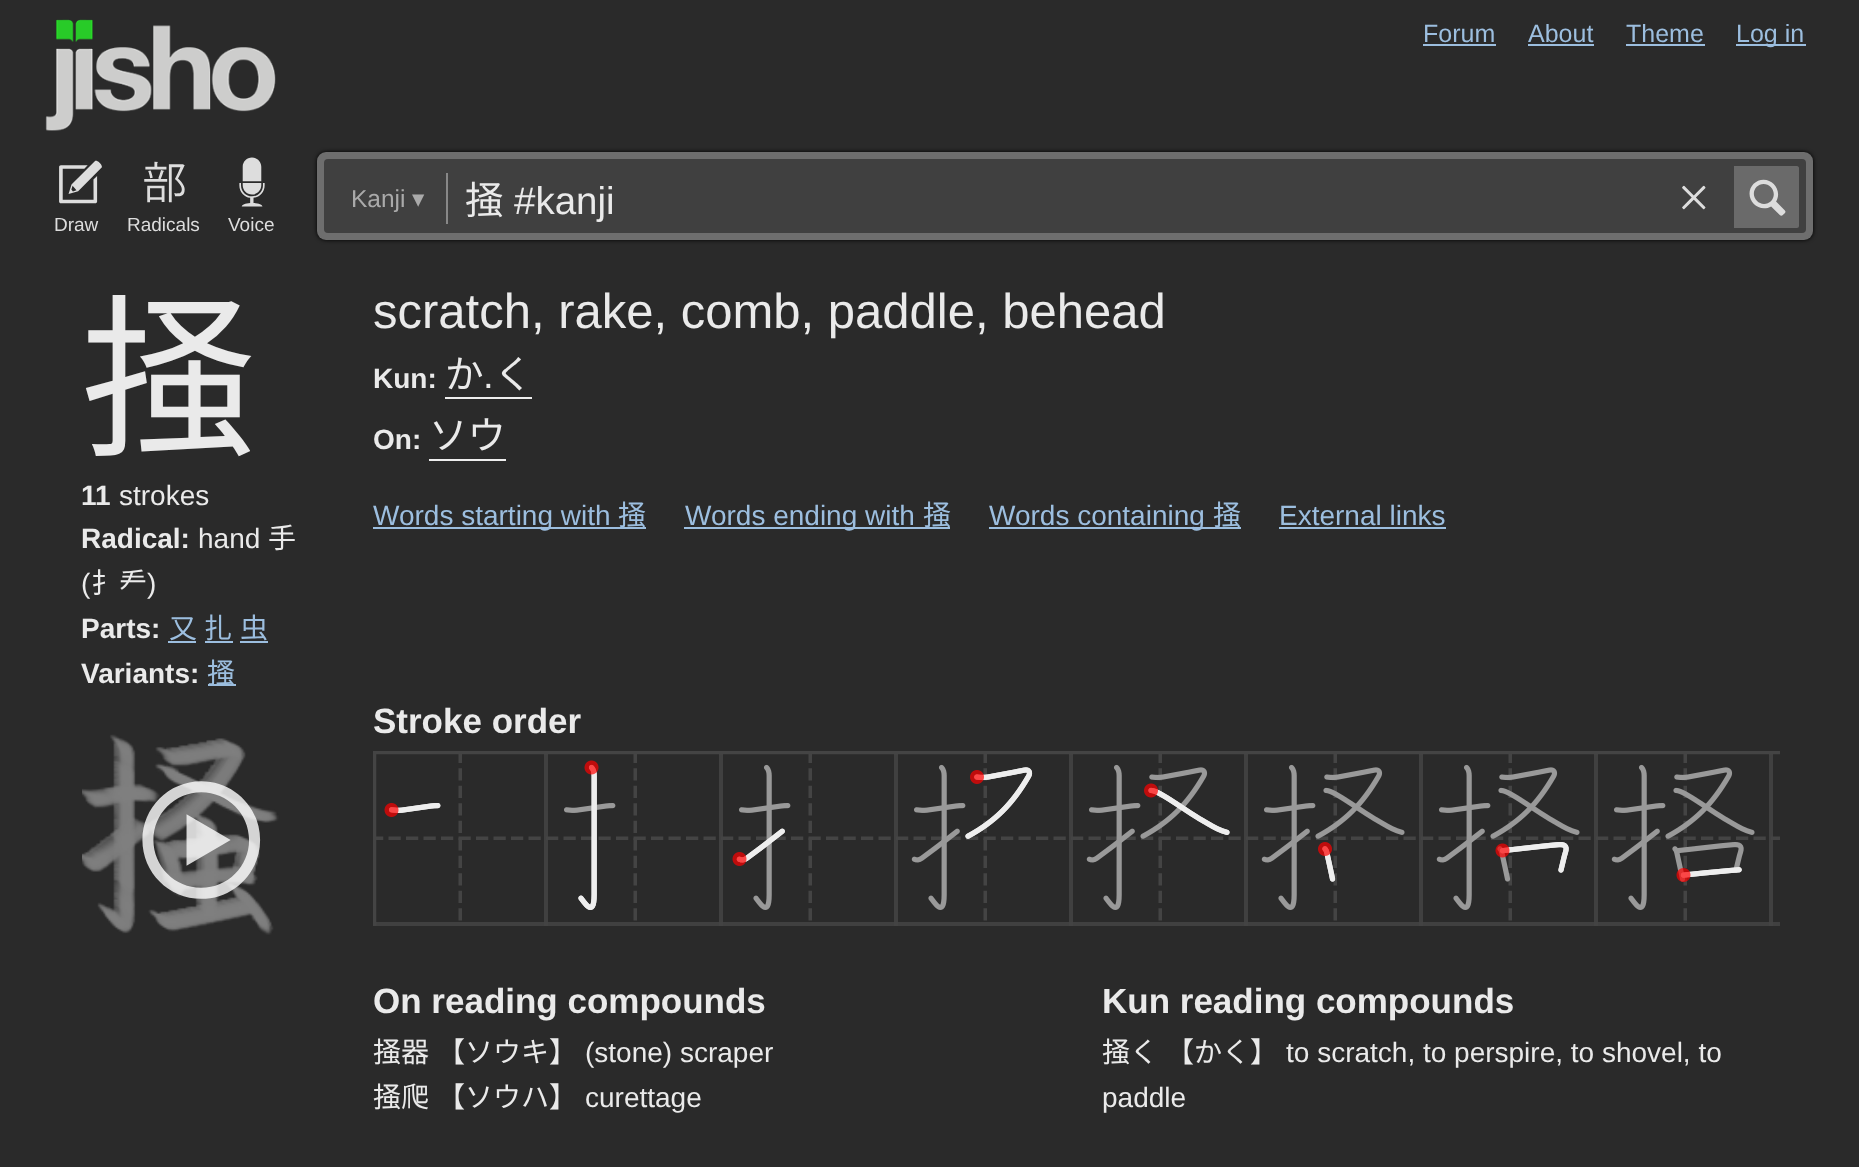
<svg xmlns="http://www.w3.org/2000/svg" width="1859" height="1167" viewBox="0 0 1859 1167">
  <style>
    .t1 { font: 25px Liberation Sans; fill: #9cbedf; }
    .t2 { font: 24.5px Liberation Sans; fill: #aaa; }
    .t3 { font: 24.5px DejaVu Sans; fill: #aaa; }
    .t4 { font: 38.5px Noto Sans CJK JP; fill: #eaeaea; }
    .t5 { font: 38.5px Liberation Sans; fill: #eaeaea; }
    .t6 { font: 19px Liberation Sans; fill: #ddd; }
    .t7 { font: 175px Noto Sans CJK JP; fill: #eaeaea; }
    .t8 { font: bold 28px Liberation Sans; fill: #eaeaea; }
    .t9 { font: 28px Liberation Sans; fill: #eaeaea; }
    .t10 { font: 28px Noto Sans CJK JP; fill: #eaeaea; }
    .t11 { font: 28px Noto Sans CJK JP; fill: #9cbedf; }
    .t12 { font: 49px Liberation Sans; fill: #eaeaea; }
    .t13 { font: 28px Liberation Sans; fill: #9cbedf; }
    .t14 { font: bold 35px Liberation Sans; fill: #eaeaea; }
  </style>
  <rect width="100%" height="100%" fill="#2a2a2a"/>
  <image x="45" y="19" width="231" height="112" href="images/1.png"/>
  <text x="1423" y="42" class="t1">Forum</text>
  <rect x="1423" y="44" width="73" height="2" fill="#9cbedf"/>
  <text x="1528" y="42" class="t1">About</text>
  <rect x="1528" y="44" width="66" height="2" fill="#9cbedf"/>
  <text x="1626" y="42" class="t1">Theme</text>
  <rect x="1626" y="44" width="79" height="2" fill="#9cbedf"/>
  <rect x="1736" y="44" width="70" height="2" fill="#9cbedf"/>
  <text x="1736" y="42" class="t1">Log in</text>
  <rect x="317" y="152" width="1496" height="88" rx="9" fill="#000" filter="blur(2px)"/>
  <rect x="317" y="152" width="1496" height="88" rx="9" fill="#6e6e6e"/>
  <rect x="324" y="159" width="1482" height="74" rx="4" fill="#404040"/>
  <rect x="446" y="173" width="2" height="51" fill="#888"/>
  <text x="351" y="207" class="t2">Kanji</text>
  <text x="412" y="207" class="t3">▾</text>
  <text x="465" y="214" class="t4">掻</text>
  <text x="514" y="214" class="t5">#kanji</text>
  <image x="1682" y="185" width="24" height="25" href="images/2.png"/>
  <path d="M1734 166H1797C1798 166 1799 167 1799 168V226C1799 227 1798 228 1797 228H1734Z" fill="#6a6a6a"/>
  <image x="1749" y="179" width="37" height="37" href="images/3.png"/>
  <image x="59" y="160" width="43" height="44" href="images/4.png"/>
  <text x="54" y="231" class="t6">Draw</text>
  <image x="144" y="161" width="41" height="42" href="images/5.png"/>
  <text x="127" y="231" class="t6">Radicals</text>
  <image x="239" y="157" width="26" height="50" href="images/6.png"/>
  <text x="228" y="231" class="t6">Voice</text>
  <text x="81" y="442" class="t7">掻</text>
  <text x="81" y="505" class="t8">11</text>
  <text x="119" y="505" class="t9">strokes</text>
  <text x="81" y="548" class="t8">Radical:</text>
  <text x="198" y="548" class="t9">hand</text>
  <text x="268" y="548" class="t10">手</text>
  <text x="81" y="593" class="t9">(</text>
  <text x="91" y="593" class="t10">扌龵</text>
  <text x="147" y="593" class="t9">)</text>
  <text x="81" y="638" class="t8">Parts:</text>
  <text x="169" y="638" class="t11">又</text>
  <rect x="168" y="641" width="28" height="2" fill="#9cbedf"/>
  <text x="204" y="638" class="t11">扎</text>
  <rect x="205" y="641" width="28" height="2" fill="#9cbedf"/>
  <text x="240" y="638" class="t11">虫</text>
  <rect x="240" y="641" width="28" height="2" fill="#9cbedf"/>
  <text x="81" y="683" class="t8">Variants:</text>
  <rect x="208" y="684" width="28" height="2" fill="#9cbedf"/>
  <text x="207" y="683" class="t11">搔</text>
  <text x="373" y="328" class="t12">scratch, rake, comb, paddle, behead</text>
  <text x="373" y="388" class="t8">Kun:</text>
  <text x="445" y="388" class="t4">か</text>
  <text x="483" y="388" class="t5">.</text>
  <rect x="445" y="397" width="87" height="2" fill="#eee"/>
  <text x="494" y="388" class="t4">く</text>
  <text x="373" y="449" class="t8">On:</text>
  <text x="429" y="449" class="t4">ソウ</text>
  <rect x="429" y="459" width="77" height="2" fill="#eee"/>
  <rect x="373" y="527" width="273" height="2" fill="#9cbedf"/>
  <text x="373" y="525" class="t13">Words starting with</text>
  <text x="618" y="525" class="t11">掻</text>
  <rect x="684" y="527" width="266" height="2" fill="#9cbedf"/>
  <text x="685" y="525" class="t13">Words ending with</text>
  <text x="923" y="525" class="t11">掻</text>
  <rect x="989" y="527" width="252" height="2" fill="#9cbedf"/>
  <text x="989" y="525" class="t13">Words containing</text>
  <text x="1213" y="525" class="t11">掻</text>
  <text x="1279" y="525" class="t13">External links</text>
  <rect x="1279" y="527" width="167" height="2" fill="#9cbedf"/>
  <text x="373" y="733" class="t14">Stroke order</text>
  <image x="373" y="751" width="1407" height="175" href="images/7.png"/>
  <image x="82" y="734" width="197" height="201" href="images/8.png"/>
  <image x="142" y="781" width="119" height="118" href="images/9.png"/>
  <text x="373" y="1013" class="t14">On reading compounds</text>
  <text x="373" y="1062" class="t10">掻器</text>
  <text x="437" y="1062" class="t10">【ソウキ】</text>
  <text x="585" y="1062" class="t9">(stone) scraper</text>
  <text x="373" y="1107" class="t10">掻爬</text>
  <text x="437" y="1107" class="t10">【ソウハ】</text>
  <text x="585" y="1107" class="t9">curettage</text>
  <text x="1102" y="1013" class="t14">Kun reading compounds</text>
  <text x="1102" y="1062" class="t10">掻く</text>
  <text x="1166" y="1062" class="t10">【かく】</text>
  <text x="1286" y="1062" class="t9">to scratch, to perspire, to shovel, to</text>
  <text x="1102" y="1107" class="t9">paddle</text>
</svg>
